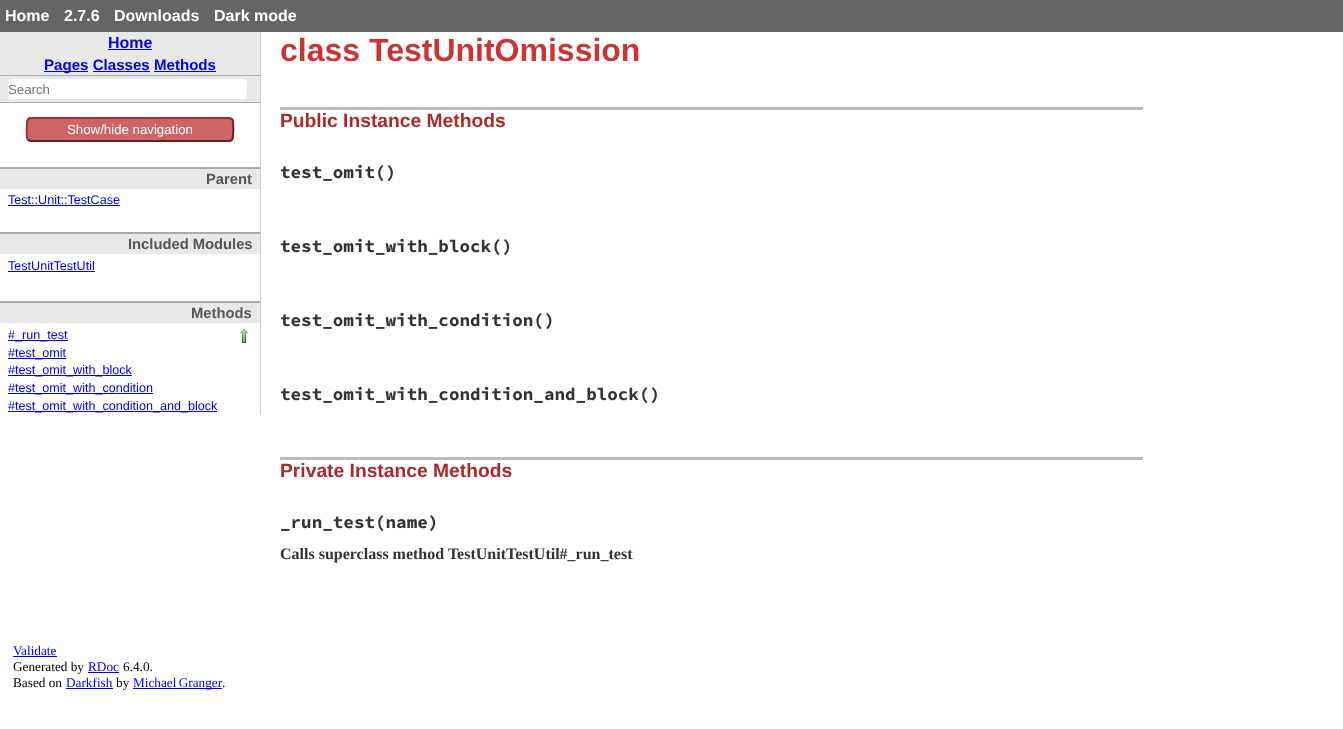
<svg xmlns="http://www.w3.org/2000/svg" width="1343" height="729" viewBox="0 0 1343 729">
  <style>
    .t1 { font: bold 16px Liberation Sans; fill: #fff; }
    .t2 { font: bold 16px Liberation Sans; fill: #00e; }
    .t3 { font: bold 15.1px Liberation Sans; fill: #00e; }
    .t4 { font: 13.25px Liberation Sans; fill: #757575; }
    .t5 { font: 13.25px Liberation Sans; fill: #fff; }
    .t6 { font: bold 14.75px Liberation Sans; fill: #555; }
    .t7 { font: 12.6px Liberation Sans; fill: #00e; }
    .t8 { font: bold 32px Liberation Sans; fill: #c33; }
    .t9 { font: bold 19.25px Liberation Sans; fill: #aa2929; }
    .t10 { font: bold 17.6px Source Code Pro; fill: #333; }
    .t11 { font: bold 16px Liberation Serif; fill: #333; }
    .t12 { font: 13.25px Liberation Serif; fill: #00e; }
    .t13 { font: 13.25px Liberation Serif; fill: #000; }
  </style>
  <rect width="100%" height="100%" fill="#fff"/>
  <rect x="0" y="0" width="1343" height="32" fill="#646462"/>
  <text x="5" y="21" class="t1">Home</text>
  <text x="64" y="21" class="t1">2.7.6</text>
  <text x="114" y="21" class="t1">Downloads</text>
  <text x="214" y="21" class="t1">Dark mode</text>
  <rect x="260" y="32" width="1" height="383" fill="#ccc"/>
  <rect x="0" y="32" width="260" height="43" fill="#e8e8e8"/>
  <text x="108" y="48" class="t2">Home</text>
  <rect x="108" y="49" width="44" height="1" fill="#00e"/>
  <rect x="44" y="71" width="44" height="1" fill="#00e"/>
  <text x="44" y="70" class="t3">Pages Classes Methods</text>
  <rect x="93" y="71" width="57" height="1" fill="#00e"/>
  <rect x="154" y="71" width="62" height="1" fill="#00e"/>
  <rect x="0" y="76" width="260" height="26" fill="#e8e8e8"/>
  <rect x="0" y="75" width="260" height="1" fill="#aaa"/>
  <rect x="0" y="102" width="260" height="1" fill="#aaa"/>
  <rect x="8" y="79" width="239" height="20" rx="4" fill="#fff"/>
  <text x="8" y="94" class="t4">Search</text>
  <rect x="26" y="117" width="208" height="25" rx="5" fill="#c66"/>
  <path d="M232 119C234 121 233.5 137.5 232 139.5C231.5 140.5 230 141 229 141H31L28 140" fill="none" stroke="#622" stroke-width="2"/>
  <path d="M28 140C26 138 26.5 121.5 28 119.5C28.5 118.5 30 118 31 118H229L232 119" fill="none" stroke="#933" stroke-width="2"/>
  <text x="67" y="134" class="t5">Show/hide navigation</text>
  <rect x="0" y="167" width="260" height="2" fill="#aaa"/>
  <rect x="0" y="169" width="260" height="20" fill="#e8e8e8"/>
  <text x="206" y="184" class="t6">Parent</text>
  <text x="8" y="204" class="t7">Test::Unit::TestCase</text>
  <rect x="8" y="205" width="112" height="1" fill="#00e"/>
  <rect x="0" y="232" width="260" height="2" fill="#aaa"/>
  <rect x="0" y="234" width="260" height="20" fill="#e8e8e8"/>
  <text x="128" y="249" class="t6">Included Modules</text>
  <text x="8" y="270" class="t7">TestUnitTestUtil</text>
  <rect x="8" y="271" width="87" height="1" fill="#00e"/>
  <rect x="0" y="301" width="260" height="2" fill="#aaa"/>
  <rect x="0" y="303" width="260" height="20" fill="#e8e8e8"/>
  <text x="191" y="318" class="t6">Methods</text>
  <image x="240" y="329" width="8" height="14" href="images/1.png"/>
  <rect x="8" y="340" width="60" height="1" fill="#00e"/>
  <text x="8" y="339" class="t7">#_run_test</text>
  <rect x="8" y="358" width="58" height="1" fill="#00e"/>
  <text x="8" y="357" class="t7">#test_omit</text>
  <rect x="8" y="375" width="124" height="1" fill="#00e"/>
  <text x="8" y="374" class="t7">#test_omit_with_block</text>
  <rect x="8" y="393" width="145" height="1" fill="#00e"/>
  <text x="8" y="392" class="t7">#test_omit_with_condition</text>
  <rect x="8" y="411" width="209" height="1" fill="#00e"/>
  <text x="8" y="410" class="t7">#test_omit_with_condition_and_block</text>
  <text x="280" y="61" class="t8">class TestUnitOmission</text>
  <rect x="280" y="107" width="863" height="3" fill="#bbb"/>
  <text x="280" y="127" class="t9">Public Instance Methods</text>
  <text x="280" y="178" class="t10">test_omit()</text>
  <text x="280" y="252" class="t10">test_omit_with_block()</text>
  <text x="280" y="326" class="t10">test_omit_with_condition()</text>
  <text x="280" y="400" class="t10">test_omit_with_condition_and_block()</text>
  <rect x="280" y="457" width="863" height="3" fill="#bbb"/>
  <text x="280" y="477" class="t9">Private Instance Methods</text>
  <text x="280" y="528" class="t10">_run_test(name)</text>
  <text x="280" y="559" class="t11">Calls superclass method TestUnitTestUtil#_run_test</text>
  <text x="13" y="655" class="t12">Validate</text>
  <rect x="13" y="656" width="44" height="1" fill="#00e"/>
  <text x="13" y="671" class="t13">Generated by</text>
  <text x="88" y="671" class="t12">RDoc</text>
  <rect x="88" y="672" width="31" height="1" fill="#00e"/>
  <text x="123" y="671" class="t13">6.4.0.</text>
  <text x="13" y="687" class="t13">Based on</text>
  <text x="66" y="687" class="t12">Darkfish</text>
  <rect x="66" y="688" width="47" height="1" fill="#00e"/>
  <text x="116" y="687" class="t13">by</text>
  <rect x="133" y="688" width="89" height="1" fill="#00e"/>
  <text x="133" y="687" word-spacing="-1" class="t12">Michael Granger</text>
  <text x="222" y="687" class="t13">.</text>
</svg>
